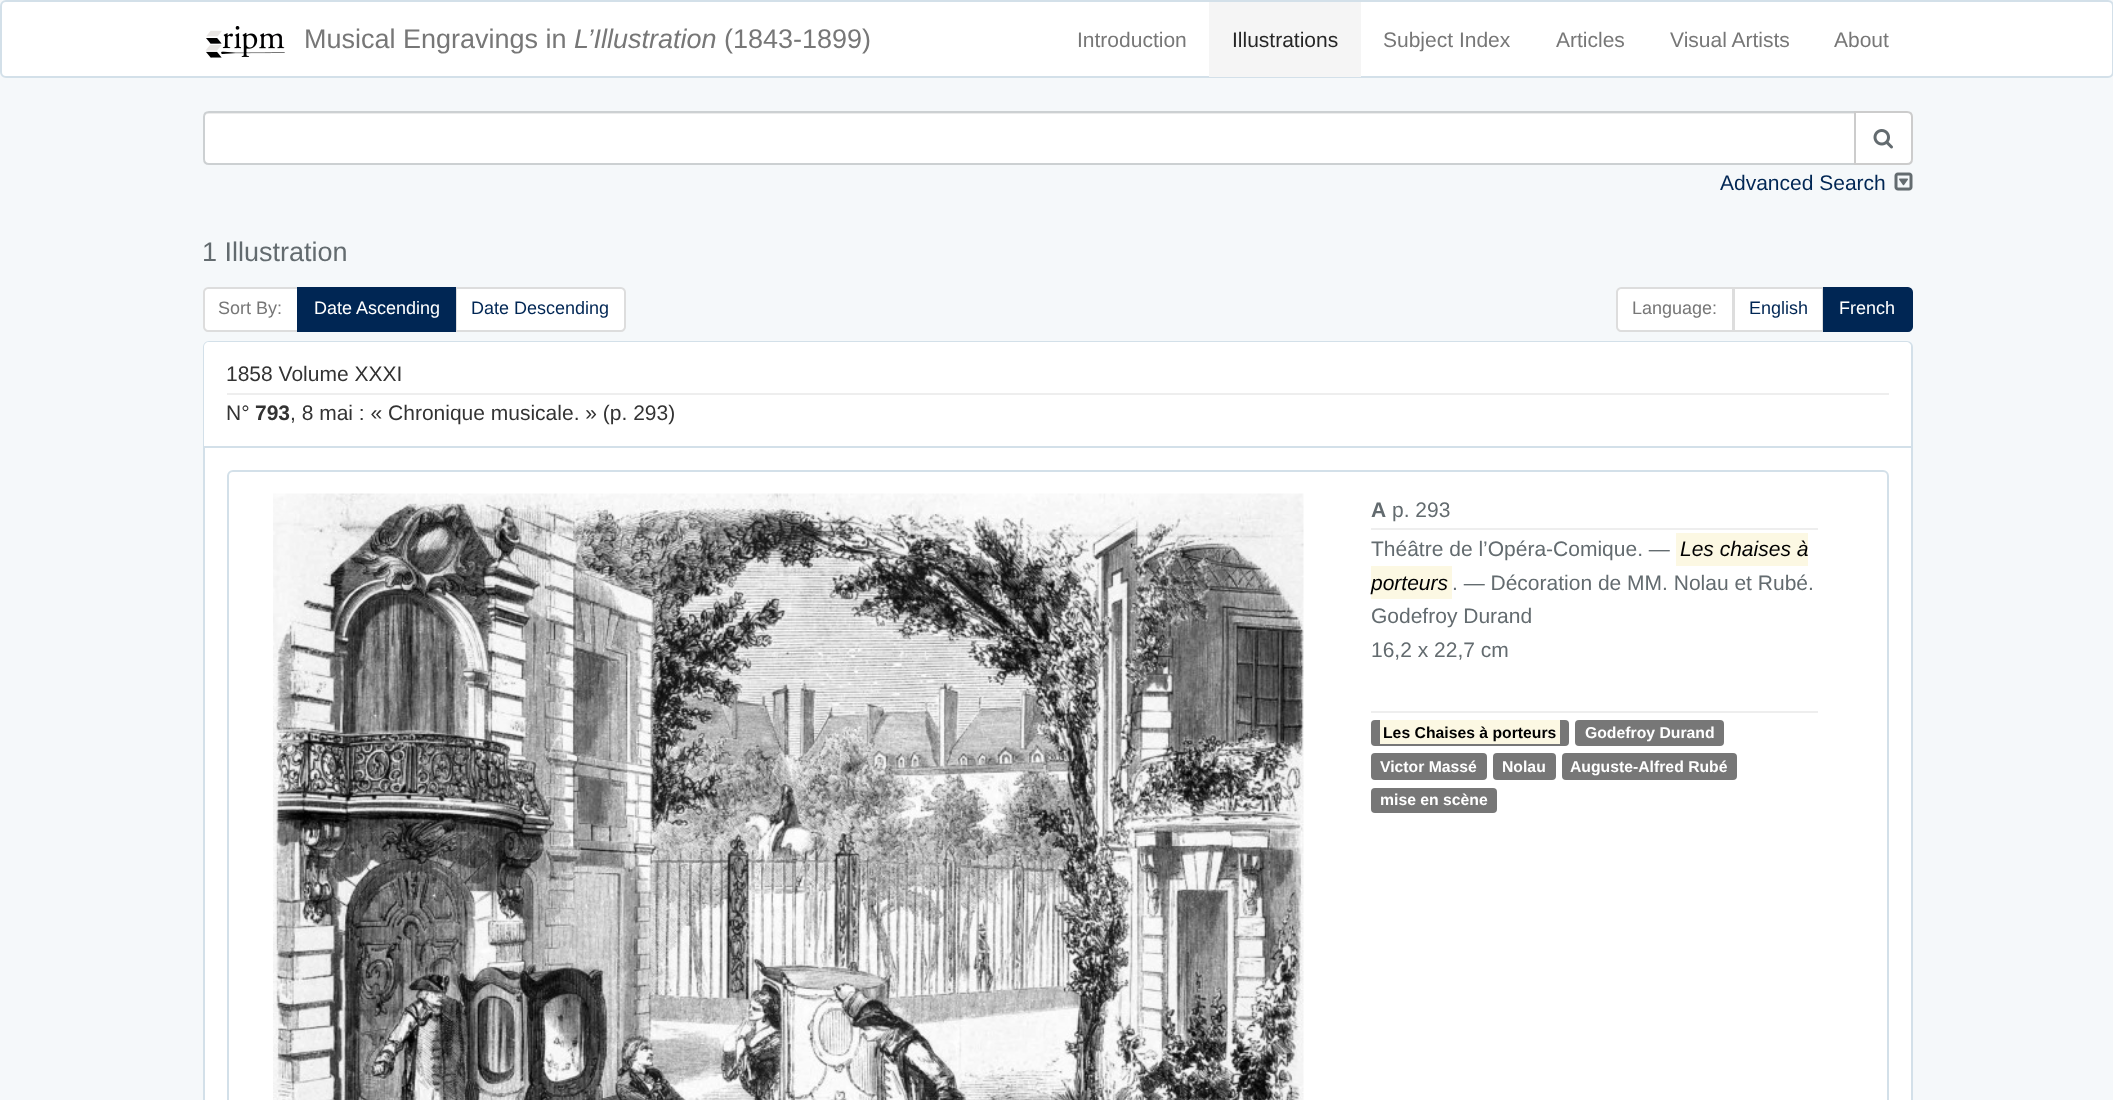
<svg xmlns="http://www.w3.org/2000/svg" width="2113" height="1100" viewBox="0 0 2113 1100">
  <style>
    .t1 { font: 27px Liberation Sans; fill: #777; }
    .t2 { font: italic 27px Liberation Sans; fill: #777; }
    .t3 { font: 21px Liberation Sans; fill: #777; }
    .t4 { font: 21px Liberation Sans; fill: #262626; }
    .t5 { font: 21px Liberation Sans; fill: #002654; }
    .t6 { font: 27px Liberation Sans; fill: #636b6f; }
    .t7 { font: 18px Liberation Sans; fill: #777; }
    .t8 { font: 18px Liberation Sans; fill: #fff; }
    .t9 { font: 18px Liberation Sans; fill: #002654; }
    .t10 { font: 21px Liberation Sans; fill: #333; }
    .t11 { font: bold 21px Liberation Sans; fill: #333; }
    .t12 { font: bold 21px Liberation Sans; fill: #636b6f; }
    .t13 { font: 21px Liberation Sans; fill: #636b6f; }
    .t14 { font: italic 21px Liberation Sans; fill: #000; }
    .t15 { font: bold 15.75px Liberation Sans; fill: #000; }
    .t16 { font: bold 15.75px Liberation Sans; fill: #fff; }
  </style>
  <rect width="100%" height="100%" fill="#f5f8fa"/>
  <rect x="1" y="1" width="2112" height="76" rx="5" fill="#fff" stroke="#d3e0e9" stroke-width="2"/>
  <image x="205" y="26" width="80" height="32" href="images/1.png"/>
  <text x="304" y="48" class="t1">Musical Engravings in</text>
  <text x="574" y="48" class="t2">L’Illustration</text>
  <text x="724" y="48" class="t1">(1843-1899)</text>
  <text x="1077" y="47" class="t3">Introduction</text>
  <rect x="1209" y="2" width="152" height="75" fill="#f5f5f5"/>
  <text x="1232" y="47" class="t4">Illustrations</text>
  <text x="1383" y="47" class="t3">Subject Index</text>
  <text x="1556" y="47" class="t3">Articles</text>
  <text x="1670" y="47" class="t3">Visual Artists</text>
  <text x="1834" y="47" class="t3">About</text>
  <path d="M209 111H1856V165H209C205.5 165 203 162.5 203 159V117C203 113.5 205.5 111 209 111Z" fill="#fff"/>
  <path d="M208 114H1854V113H209C206 113 204 115 204 118C204 116 206 114 208 114Z" fill="#ececec"/>
  <path d="M209 112H1855V164H209C206 164 204 162 204 159V117C204 114 206 112 209 112Z" fill="none" stroke="#ccd0d2" stroke-width="2"/>
  <path d="M1855 112H1907C1910 112 1912 114 1912 117V159C1912 162 1910 164 1907 164H1855Z" fill="#fff" stroke="#ccc" stroke-width="2"/>
  <image x="1873" y="129" width="20" height="20" href="images/2.png"/>
  <text x="1720" y="190" class="t5">Advanced Search</text>
  <image x="1894" y="172" width="19" height="19" href="images/3.png"/>
  <text x="202" y="261" class="t6">1 Illustration</text>
  <path d="M208 288H298V331H208C206 331 204 329 204 327V292C204 290 206 288 208 288Z" fill="#fff" stroke="#ddd" stroke-width="2"/>
  <text x="218" y="314" class="t7">Sort By:</text>
  <path d="M456 288H621C623 288 625 290 625 292V327C625 329 623 331 621 331H456Z" fill="#fff" stroke="#ddd" stroke-width="2"/>
  <rect x="297" y="287" width="159" height="45" fill="#002654"/>
  <text x="314" y="314" class="t8">Date Ascending</text>
  <text x="471" y="314" class="t9">Date Descending</text>
  <path d="M1621 288H1733V331H1621C1619 331 1617 329 1617 327V292C1617 290 1619 288 1621 288Z" fill="#fff" stroke="#ddd" stroke-width="2"/>
  <text x="1632" y="314" class="t7">Language:</text>
  <rect x="1734" y="288" width="89" height="43" fill="#fff" stroke="#ddd" stroke-width="2"/>
  <text x="1749" y="314" class="t9">English</text>
  <path d="M1824 288H1908C1910 288 1912 290 1912 292V327C1912 329 1910 331 1908 331H1824Z" fill="#002654" stroke="#002654" stroke-width="2"/>
  <text x="1839" y="314" class="t8">French</text>
  <rect x="204" y="342" width="1708" height="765" rx="5" fill="#fff" stroke="#d3e0e9" stroke-width="2"/>
  <path d="M209 342H1906C1909 342 1911 344 1911 347V447H204V347C204 344 206 342 209 342Z" fill="#fff"/>
  <rect x="204" y="446" width="1707" height="2" fill="#d3e0e9"/>
  <text x="226" y="381" class="t10">1858 Volume XXXI</text>
  <rect x="227" y="393" width="1662" height="2" fill="#eee"/>
  <text x="226" y="420" class="t10">N°</text>
  <text x="255" y="420" class="t11">793</text>
  <text x="290" y="420" class="t10">, 8 mai : « Chronique musicale. » (p. 293)</text>
  <rect x="228" y="471" width="1660" height="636" rx="5" fill="none" stroke="#d3e0e9" stroke-width="2"/>
  <image x="273" y="493" width="1031" height="607" href="images/4.png"/>
  <text x="1371" y="517" class="t12">A</text>
  <text x="1392" y="517" class="t13">p. 293</text>
  <rect x="1371" y="528" width="447" height="2" fill="#eee"/>
  <text x="1371" y="556" class="t13">Théâtre de l’Opéra-Comique. —</text>
  <rect x="1676" y="533" width="132" height="33" fill="#fcf8e3"/>
  <text x="1680" y="556" class="t14">Les chaises à</text>
  <rect x="1371" y="566" width="81" height="33" fill="#fcf8e3"/>
  <text x="1371" y="590" class="t14">porteurs</text>
  <text x="1452" y="590" class="t13">. — Décoration de MM. Nolau et Rubé.</text>
  <text x="1371" y="623" class="t13">Godefroy Durand</text>
  <text x="1371" y="657" class="t13">16,2 x 22,7 cm</text>
  <rect x="1371" y="711" width="447" height="2" fill="#eee"/>
  <rect x="1371" y="720" width="198" height="26" rx="4" fill="#777"/>
  <rect x="1380" y="720" width="180" height="24" fill="#fcf8e3"/>
  <text x="1383" y="738" class="t15">Les Chaises à porteurs</text>
  <rect x="1575" y="720" width="149" height="26" rx="4" fill="#777"/>
  <text x="1585" y="738" class="t16">Godefroy Durand</text>
  <rect x="1371" y="753" width="116" height="27" rx="4" fill="#777"/>
  <text x="1380" y="772" class="t16">Victor Massé</text>
  <rect x="1493" y="753" width="63" height="27" rx="4" fill="#777"/>
  <text x="1502" y="772" class="t16">Nolau</text>
  <rect x="1562" y="753" width="175" height="27" rx="4" fill="#777"/>
  <text x="1570" y="772" class="t16">Auguste-Alfred Rubé</text>
  <rect x="1371" y="788" width="126" height="25" rx="4" fill="#777"/>
  <text x="1380" y="805" class="t16">mise en scène</text>
</svg>
